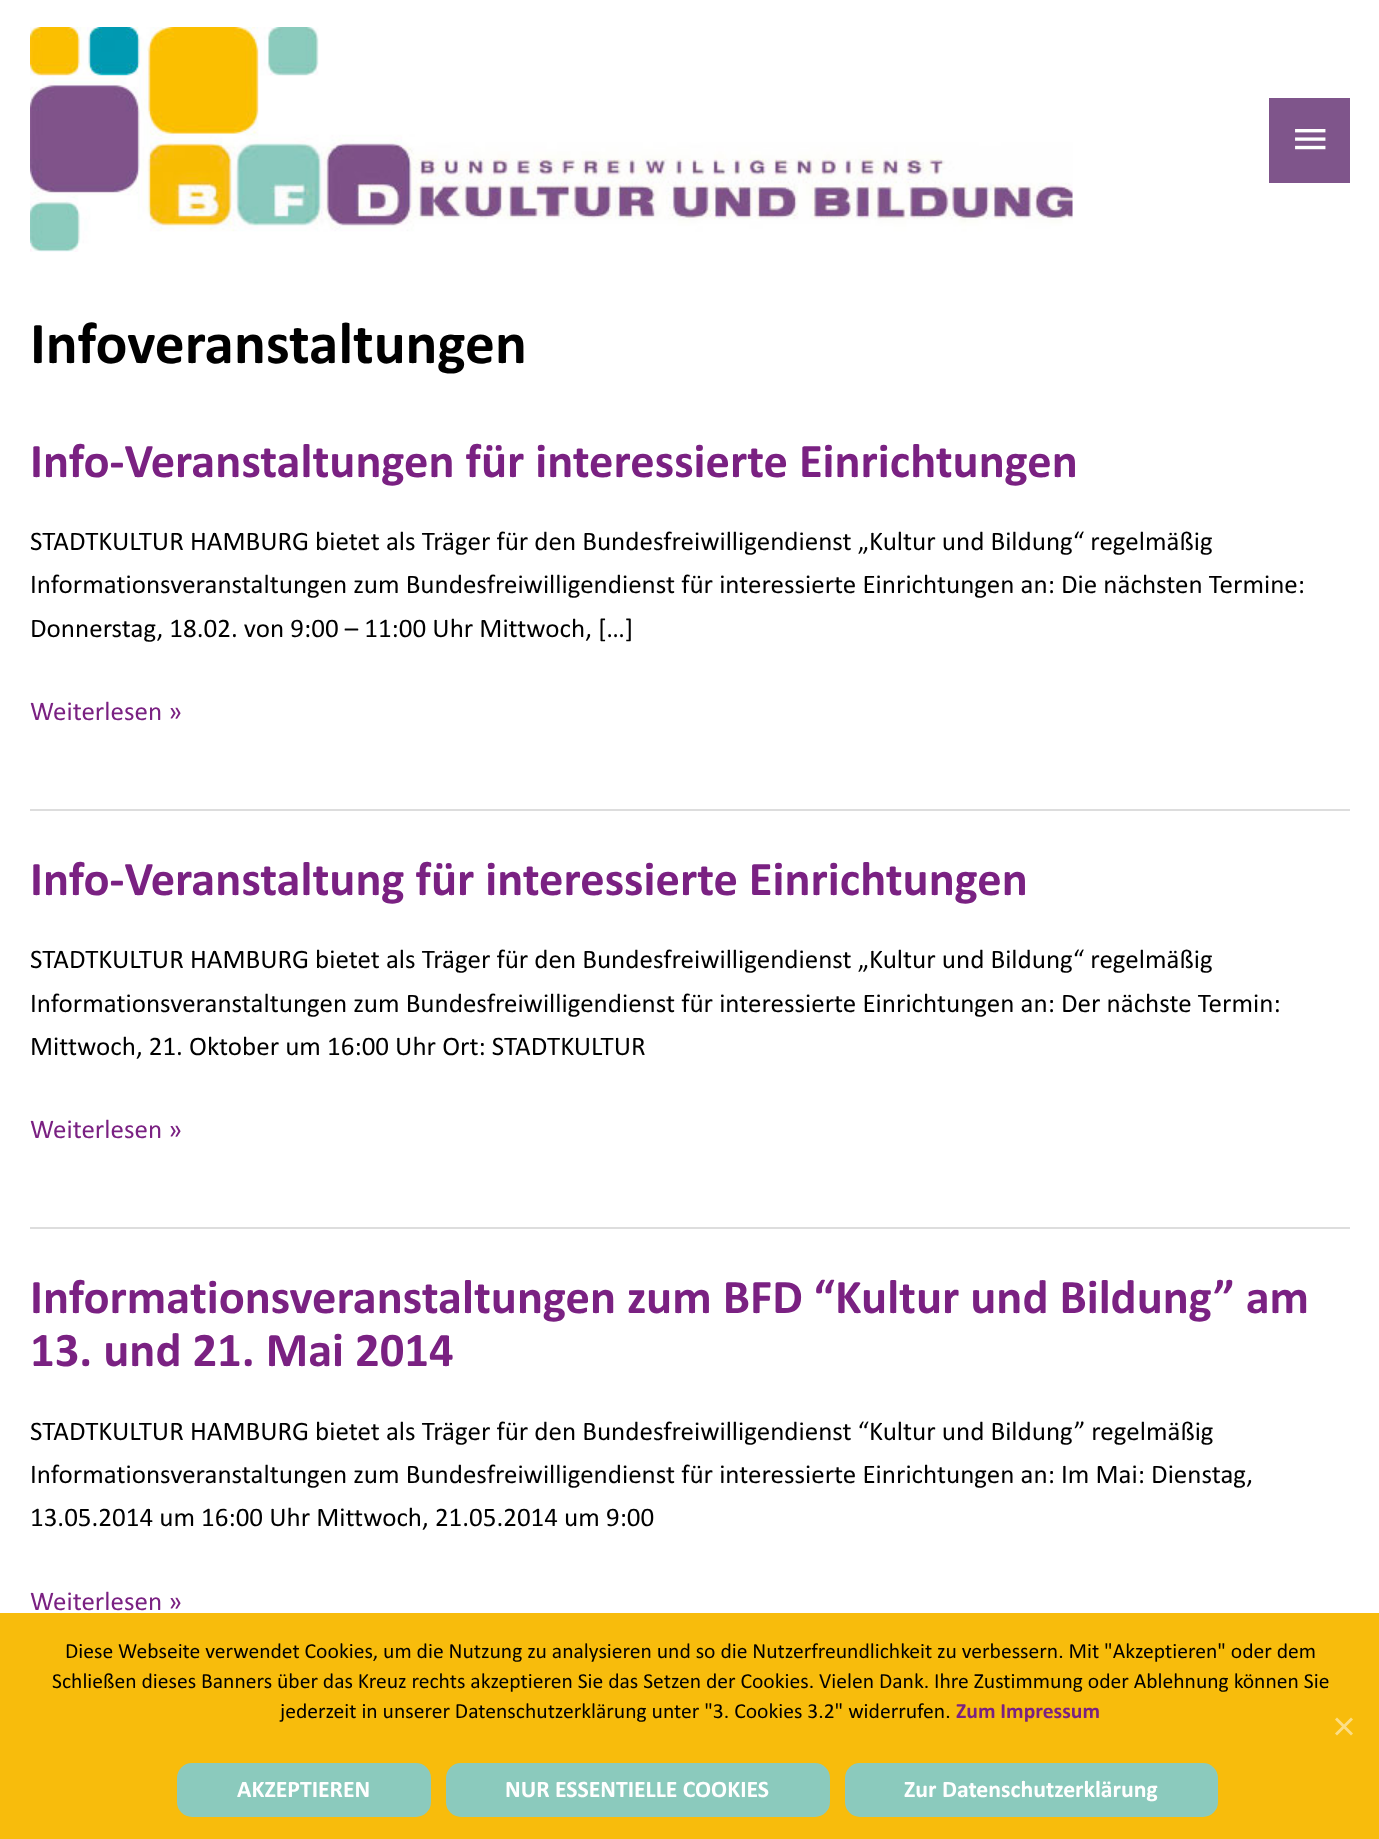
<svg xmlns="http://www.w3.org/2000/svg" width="1379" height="1839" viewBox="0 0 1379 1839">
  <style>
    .t1 { font: bold 59.5px Calibri; fill: #000; }
    .t2 { font: bold 48.6px Calibri; fill: #7a2182; }
    .t3 { font: 27px Calibri; fill: #000; }
    .t4 { font: 27px Calibri; fill: #7a2182; }
    .t5 { font: 21.6px Calibri; fill: #000; }
    .t6 { font: bold 21.6px Calibri; fill: #7a2182; }
    .t7 { font: bold 23.75px Calibri; fill: #fff; }
  </style>
  <rect width="100%" height="100%" fill="#fff"/>
  <image x="30" y="27" width="1043" height="225" href="images/1.png"/>
  <rect x="1269" y="98" width="81" height="85" fill="#7f558b"/>
  <image x="1295" y="129" width="31" height="21" href="images/2.png"/>
  <text x="30" y="363" class="t1">Infoveranstaltungen</text>
  <rect x="30" y="809" width="1320" height="2" fill="#ddd"/>
  <text x="30" y="477" class="t2">Info-Veranstaltungen für interessierte Einrichtungen</text>
  <text x="30" y="550" class="t3">STADTKULTUR HAMBURG bietet als Träger für den Bundesfreiwilligendienst „Kultur und Bildung“ regelmäßig</text>
  <text x="30" y="593" class="t3">Informationsveranstaltungen zum Bundesfreiwilligendienst für interessierte Einrichtungen an: Die nächsten Termine:</text>
  <text x="30" y="637" class="t3">Donnerstag, 18.02. von 9:00 – 11:00 Uhr Mittwoch, […]</text>
  <text x="30" y="720" class="t4">Weiterlesen »</text>
  <rect x="30" y="1227" width="1320" height="2" fill="#ddd"/>
  <text x="30" y="895" class="t2">Info-Veranstaltung für interessierte Einrichtungen</text>
  <text x="30" y="968" class="t3">STADTKULTUR HAMBURG bietet als Träger für den Bundesfreiwilligendienst „Kultur und Bildung“ regelmäßig</text>
  <text x="30" y="1012" class="t3">Informationsveranstaltungen zum Bundesfreiwilligendienst für interessierte Einrichtungen an: Der nächste Termin:</text>
  <text x="30" y="1055" class="t3">Mittwoch, 21. Oktober um 16:00 Uhr Ort: STADTKULTUR</text>
  <text x="30" y="1138" class="t4">Weiterlesen »</text>
  <text x="30" y="1313" class="t2">Informationsveranstaltungen zum BFD “Kultur und Bildung” am</text>
  <text x="30" y="1366" class="t2">13. und 21. Mai 2014</text>
  <text x="30" y="1440" class="t3">STADTKULTUR HAMBURG bietet als Träger für den Bundesfreiwilligendienst “Kultur und Bildung” regelmäßig</text>
  <text x="30" y="1483" class="t3">Informationsveranstaltungen zum Bundesfreiwilligendienst für interessierte Einrichtungen an: Im Mai: Dienstag,</text>
  <text x="30" y="1526" class="t3">13.05.2014 um 16:00 Uhr Mittwoch, 21.05.2014 um 9:00</text>
  <text x="30" y="1610" class="t4">Weiterlesen »</text>
  <rect x="0" y="1613" width="1379" height="226" fill="#f8bc0c"/>
  <text x="65" y="1658" class="t5">Diese Webseite verwendet Cookies, um die Nutzung zu analysieren und so die Nutzerfreundlichkeit zu verbessern. Mit "Akzeptieren" oder dem</text>
  <text x="52" y="1688" class="t5">Schließen dieses Banners über das Kreuz rechts akzeptieren Sie das Setzen der Cookies. Vielen Dank. Ihre Zustimmung oder Ablehnung können Sie</text>
  <text x="280" y="1718" class="t5">jederzeit in unserer Datenschutzerklärung unter "3. Cookies 3.2" widerrufen.</text>
  <text x="956" y="1718" class="t6">Zum Impressum</text>
  <path d="M1351 1717.5L1353 1719.5L1337 1735.5L1335 1733.5Z" fill="#fcde86"/>
  <path d="M1335 1719.5L1337 1717.5L1353 1733.5L1351 1735.5Z" fill="#fcde86"/>
  <rect x="177" y="1763" width="254" height="54" rx="15" fill="#8bcabd"/>
  <text x="237" y="1797" class="t7">AKZEPTIEREN</text>
  <rect x="446" y="1763" width="384" height="54" rx="15" fill="#8bcabd"/>
  <text x="505" y="1797" class="t7">NUR ESSENTIELLE COOKIES</text>
  <rect x="845" y="1763" width="373" height="54" rx="15" fill="#8bcabd"/>
  <text x="904" y="1797" class="t7">Zur Datenschutzerklärung</text>
</svg>
